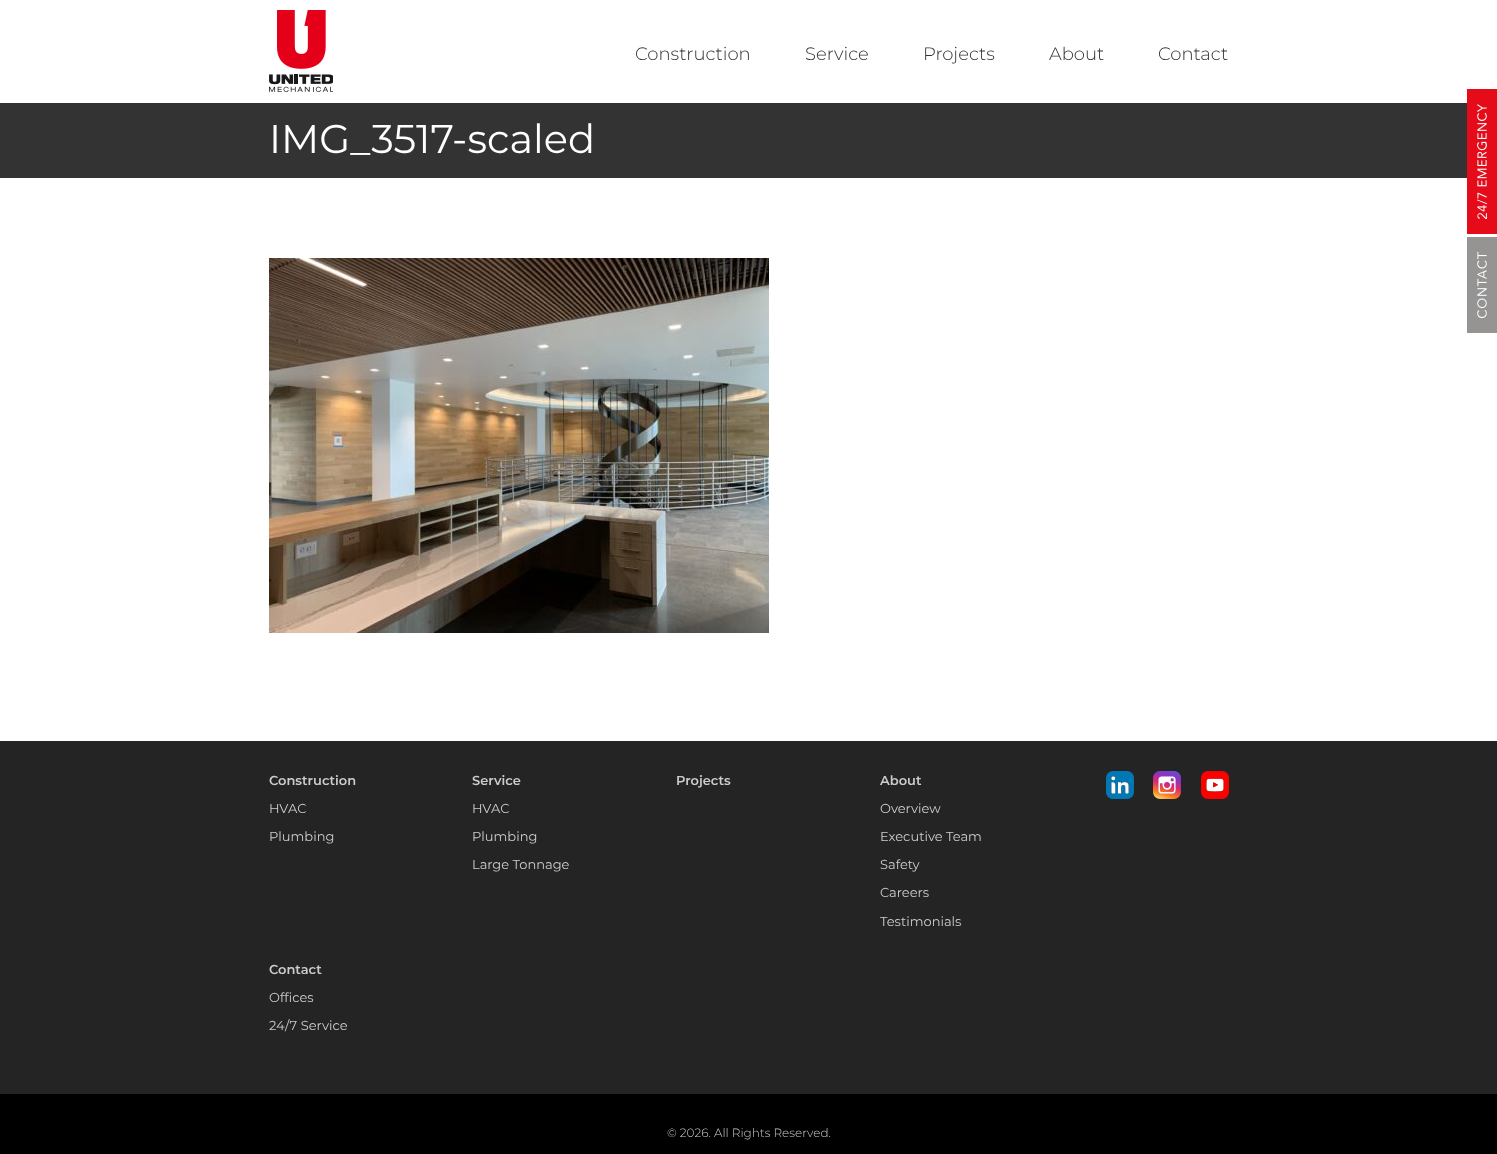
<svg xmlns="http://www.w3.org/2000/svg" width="1497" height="1154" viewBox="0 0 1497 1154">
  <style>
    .t1 { font: 300 18px Montserrat; fill: #333; }
    .t2 { font: 40px Montserrat; fill: #fff; }
    .t3 { font: 600 13px Montserrat; fill: #ccc; }
    .t4 { font: 13px Montserrat; fill: #ccc; }
    .t5 { font: 300 12px Montserrat; fill: #ccc; }
  </style>
  <rect width="100%" height="100%" fill="#fff"/>
  <image x="269" y="10" width="64" height="82" href="images/1.png"/>
  <text x="635" y="60" class="t1">Construction</text>
  <text x="805" y="60" class="t1">Service</text>
  <text x="923" y="60" class="t1">Projects</text>
  <text x="1049" y="60" class="t1">About</text>
  <text x="1158" y="60" class="t1">Contact</text>
  <rect x="0" y="103" width="1467" height="75" fill="#333"/>
  <text x="269" y="153" class="t2">IMG_3517-scaled</text>
  <image x="269" y="258" width="500" height="375" href="images/2.png"/>
  <image x="1467" y="89" width="30" height="145" href="images/3.png"/>
  <image x="1467" y="237" width="30" height="96" href="images/4.png"/>
  <rect x="0" y="741" width="1497" height="353" fill="#242424"/>
  <text x="269" y="785" class="t3">Construction</text>
  <text x="269" y="813" class="t4">HVAC</text>
  <text x="269" y="841" class="t4">Plumbing</text>
  <text x="472" y="785" class="t3">Service</text>
  <text x="472" y="813" class="t4">HVAC</text>
  <text x="472" y="841" class="t4">Plumbing</text>
  <text x="472" y="869" class="t4">Large Tonnage</text>
  <text x="676" y="785" class="t3">Projects</text>
  <text x="880" y="785" class="t3">About</text>
  <text x="880" y="813" class="t4">Overview</text>
  <text x="880" y="841" class="t4">Executive Team</text>
  <text x="880" y="869" class="t4">Safety</text>
  <text x="880" y="897" class="t4">Careers</text>
  <text x="880" y="926" class="t4">Testimonials</text>
  <text x="269" y="974" class="t3">Contact</text>
  <text x="269" y="1002" class="t4">Offices</text>
  <text x="269" y="1030" class="t4">24/7 Service</text>
  <image x="1106" y="771" width="28" height="28" href="images/5.png"/>
  <image x="1153" y="771" width="28" height="28" href="images/6.png"/>
  <image x="1201" y="771" width="28" height="28" href="images/7.png"/>
  <rect x="0" y="1094" width="1497" height="60" fill="#000"/>
  <text x="667" y="1137" class="t5">© 2026. All Rights Reserved.</text>
</svg>
